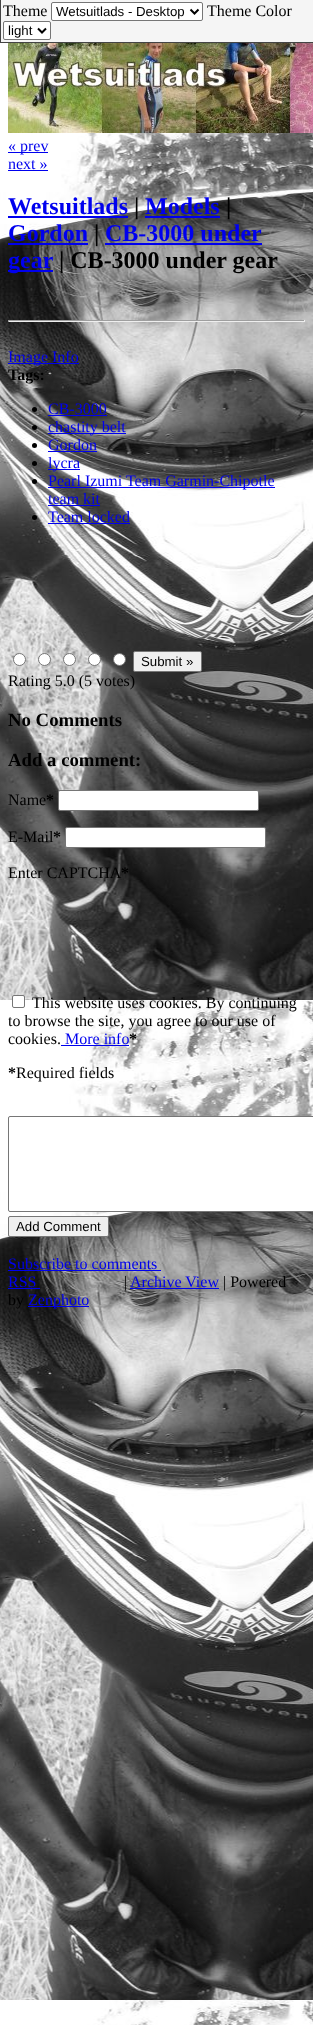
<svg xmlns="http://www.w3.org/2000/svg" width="313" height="2025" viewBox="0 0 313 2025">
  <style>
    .t1 { font: 16px Liberation Serif; fill: #000; }
    .t2 { font: 13.25px Liberation Sans; fill: #000; }
    .t3 { font: 16px Liberation Serif; fill: #00e; }
    .t4 { font: bold 24px Liberation Serif; fill: #00e; }
    .t5 { font: bold 24px Liberation Serif; fill: #000; }
    .t6 { font: bold 16px Liberation Serif; fill: #000; }
    .t7 { font: bold 18.75px Liberation Serif; fill: #000; }
  </style>
  <rect width="100%" height="100%" fill="#fff"/>
  <image x="0" y="43" width="313" height="1982" href="images/1.png"/>
  <rect x="1" y="0" width="312" height="42" fill="#f5f5f5"/>
  <rect x="0" y="42" width="313" height="1" fill="#444"/>
  <rect x="0" y="0" width="1" height="43" fill="#444"/>
  <text x="3" y="16" class="t1">Theme</text>
  <rect x="51.5" y="2.5" width="151" height="18" rx="1.5" fill="#fff" stroke="#767676"/>
  <path d="M190.5 9.5L194.5 13.5L198.5 9.5" fill="none" stroke="#000" stroke-width="2"/>
  <text x="56" y="16" class="t2">Wetsuitlads - Desktop</text>
  <text x="207" y="16" class="t1">Theme Color</text>
  <rect x="3.5" y="21.5" width="47" height="18" rx="1.5" fill="#fff" stroke="#767676"/>
  <path d="M38 28.5L42 32.5L46 28.5" fill="none" stroke="#000" stroke-width="2"/>
  <text x="8" y="35" class="t2">light</text>
  <image x="8" y="43" width="305" height="90" href="images/2.png"/>
  <rect x="8" y="152" width="40" height="1" fill="#00e"/>
  <text x="8" y="151" class="t3">« prev</text>
  <text x="8" y="169" class="t3">next »</text>
  <rect x="8" y="170" width="40" height="1" fill="#00e"/>
  <text x="8" y="214" class="t4">Wetsuitlads</text>
  <rect x="8" y="216" width="120" height="2" fill="#00e"/>
  <text x="134" y="214" class="t5">|</text>
  <text x="145" y="214" class="t4">Models</text>
  <rect x="145" y="216" width="75" height="2" fill="#00e"/>
  <text x="226" y="214" class="t5">|</text>
  <text x="8" y="241" class="t4">Gordon</text>
  <rect x="8" y="243" width="80" height="2" fill="#00e"/>
  <text x="94" y="241" class="t5">|</text>
  <text x="105" y="241" class="t4">CB-3000 under</text>
  <rect x="105" y="243" width="157" height="2" fill="#00e"/>
  <rect x="8" y="270" width="45" height="2" fill="#00e"/>
  <text x="8" y="268" class="t4">gear</text>
  <text x="59" y="268" class="t5">| CB-3000 under gear</text>
  <rect x="8" y="320" width="297" height="1" fill="#9f9f9f"/>
  <rect x="304" y="320" width="1" height="2" fill="#eee"/>
  <rect x="8" y="321" width="297" height="1" fill="#eee"/>
  <rect x="8" y="320" width="1" height="2" fill="#9f9f9f"/>
  <rect x="8" y="363" width="71" height="1" fill="#00e"/>
  <text x="8" y="362" class="t3">Image Info</text>
  <text x="8" y="380" class="t6">Tags:</text>
  <circle cx="34.5" cy="409.5" r="2.5" fill="#000"/>
  <text x="48" y="414" class="t3">CB-3000</text>
  <rect x="48" y="415" width="59" height="1" fill="#00e"/>
  <circle cx="34.5" cy="427.5" r="2.5" fill="#000"/>
  <rect x="48" y="433" width="78" height="1" fill="#00e"/>
  <text x="48" y="432" class="t3">chastity belt</text>
  <circle cx="34.5" cy="445.5" r="2.5" fill="#000"/>
  <text x="48" y="450" class="t3">Gordon</text>
  <rect x="48" y="451" width="49" height="1" fill="#00e"/>
  <circle cx="34.5" cy="463.5" r="2.5" fill="#000"/>
  <rect x="48" y="469" width="32" height="1" fill="#00e"/>
  <text x="48" y="468" class="t3">lycra</text>
  <circle cx="34.5" cy="481.5" r="2.5" fill="#000"/>
  <rect x="48" y="487" width="227" height="1" fill="#00e"/>
  <text x="48" y="486" class="t3">Pearl Izumi Team Garmin-Chipotle</text>
  <text x="48" y="504" class="t3">team kit</text>
  <rect x="48" y="505" width="52" height="1" fill="#00e"/>
  <circle cx="34.5" cy="517.5" r="2.5" fill="#000"/>
  <text x="48" y="522" class="t3">Team locked</text>
  <rect x="48" y="523" width="82" height="1" fill="#00e"/>
  <circle cx="19.5" cy="659.5" r="6" fill="#fff" stroke="#767676"/>
  <circle cx="44.5" cy="659.5" r="6" fill="#fff" stroke="#767676"/>
  <circle cx="69.5" cy="659.5" r="6" fill="#fff" stroke="#767676"/>
  <circle cx="94.5" cy="659.5" r="6" fill="#fff" stroke="#767676"/>
  <circle cx="119.5" cy="659.5" r="6" fill="#fff" stroke="#767676"/>
  <rect x="133.5" y="651.5" width="68" height="20" rx="1.5" fill="#efefef" stroke="#767676"/>
  <text x="141" y="666" class="t2">Submit »</text>
  <text x="8" y="686" class="t1">Rating 5.0 (5 votes)</text>
  <text x="8" y="726" class="t7">No Comments</text>
  <text x="8" y="766" class="t7">Add a comment:</text>
  <text x="8" y="805" class="t1">Name</text>
  <text x="46" y="805" class="t6">*</text>
  <rect x="58.5" y="790.5" width="200" height="20" rx="1.5" fill="#fff" stroke="#767676"/>
  <text x="8" y="842" class="t1">E-Mail</text>
  <text x="53" y="842" class="t6">*</text>
  <rect x="65.5" y="827.5" width="200" height="20" rx="1.5" fill="#fff" stroke="#767676"/>
  <text x="8" y="878" class="t1">Enter CAPTCHA</text>
  <text x="121" y="878" class="t6">*</text>
  <rect x="12.5" y="995.5" width="12" height="12" rx="1.5" fill="#fff" stroke="#767676"/>
  <text x="32" y="1008" class="t1">This website uses cookies. By continuing</text>
  <text x="8" y="1026" class="t1">to browse the site, you agree to our use of</text>
  <text x="8" y="1044" class="t1">cookies.</text>
  <text x="65" y="1044" class="t3">More info</text>
  <rect x="61" y="1045" width="68" height="1" fill="#00e"/>
  <text x="129" y="1044" class="t6">*</text>
  <text x="8" y="1078" class="t6">*</text>
  <text x="16" y="1078" class="t1">Required fields</text>
  <rect x="8.5" y="1116.5" width="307" height="95" rx="1.5" fill="#fff" stroke="#767676"/>
  <rect x="8.5" y="1216.5" width="100" height="20" rx="1.5" fill="#efefef" stroke="#767676"/>
  <text x="16" y="1231" class="t2">Add Comment</text>
  <text x="8" y="1269" class="t3">Subscribe to comments</text>
  <rect x="8" y="1270" width="153" height="1" fill="#00e"/>
  <text x="8" y="1287" class="t3">RSS</text>
  <rect x="8" y="1288" width="32" height="1" fill="#00e"/>
  <text x="124" y="1287" class="t1">|</text>
  <text x="130" y="1287" class="t3">Archive View</text>
  <rect x="130" y="1288" width="89" height="1" fill="#00e"/>
  <text x="223" y="1287" class="t1">| Powered</text>
  <text x="8" y="1305" class="t1">by</text>
  <rect x="28" y="1306" width="61" height="1" fill="#00e"/>
  <text x="28" y="1305" class="t3">Zenphoto</text>
</svg>
